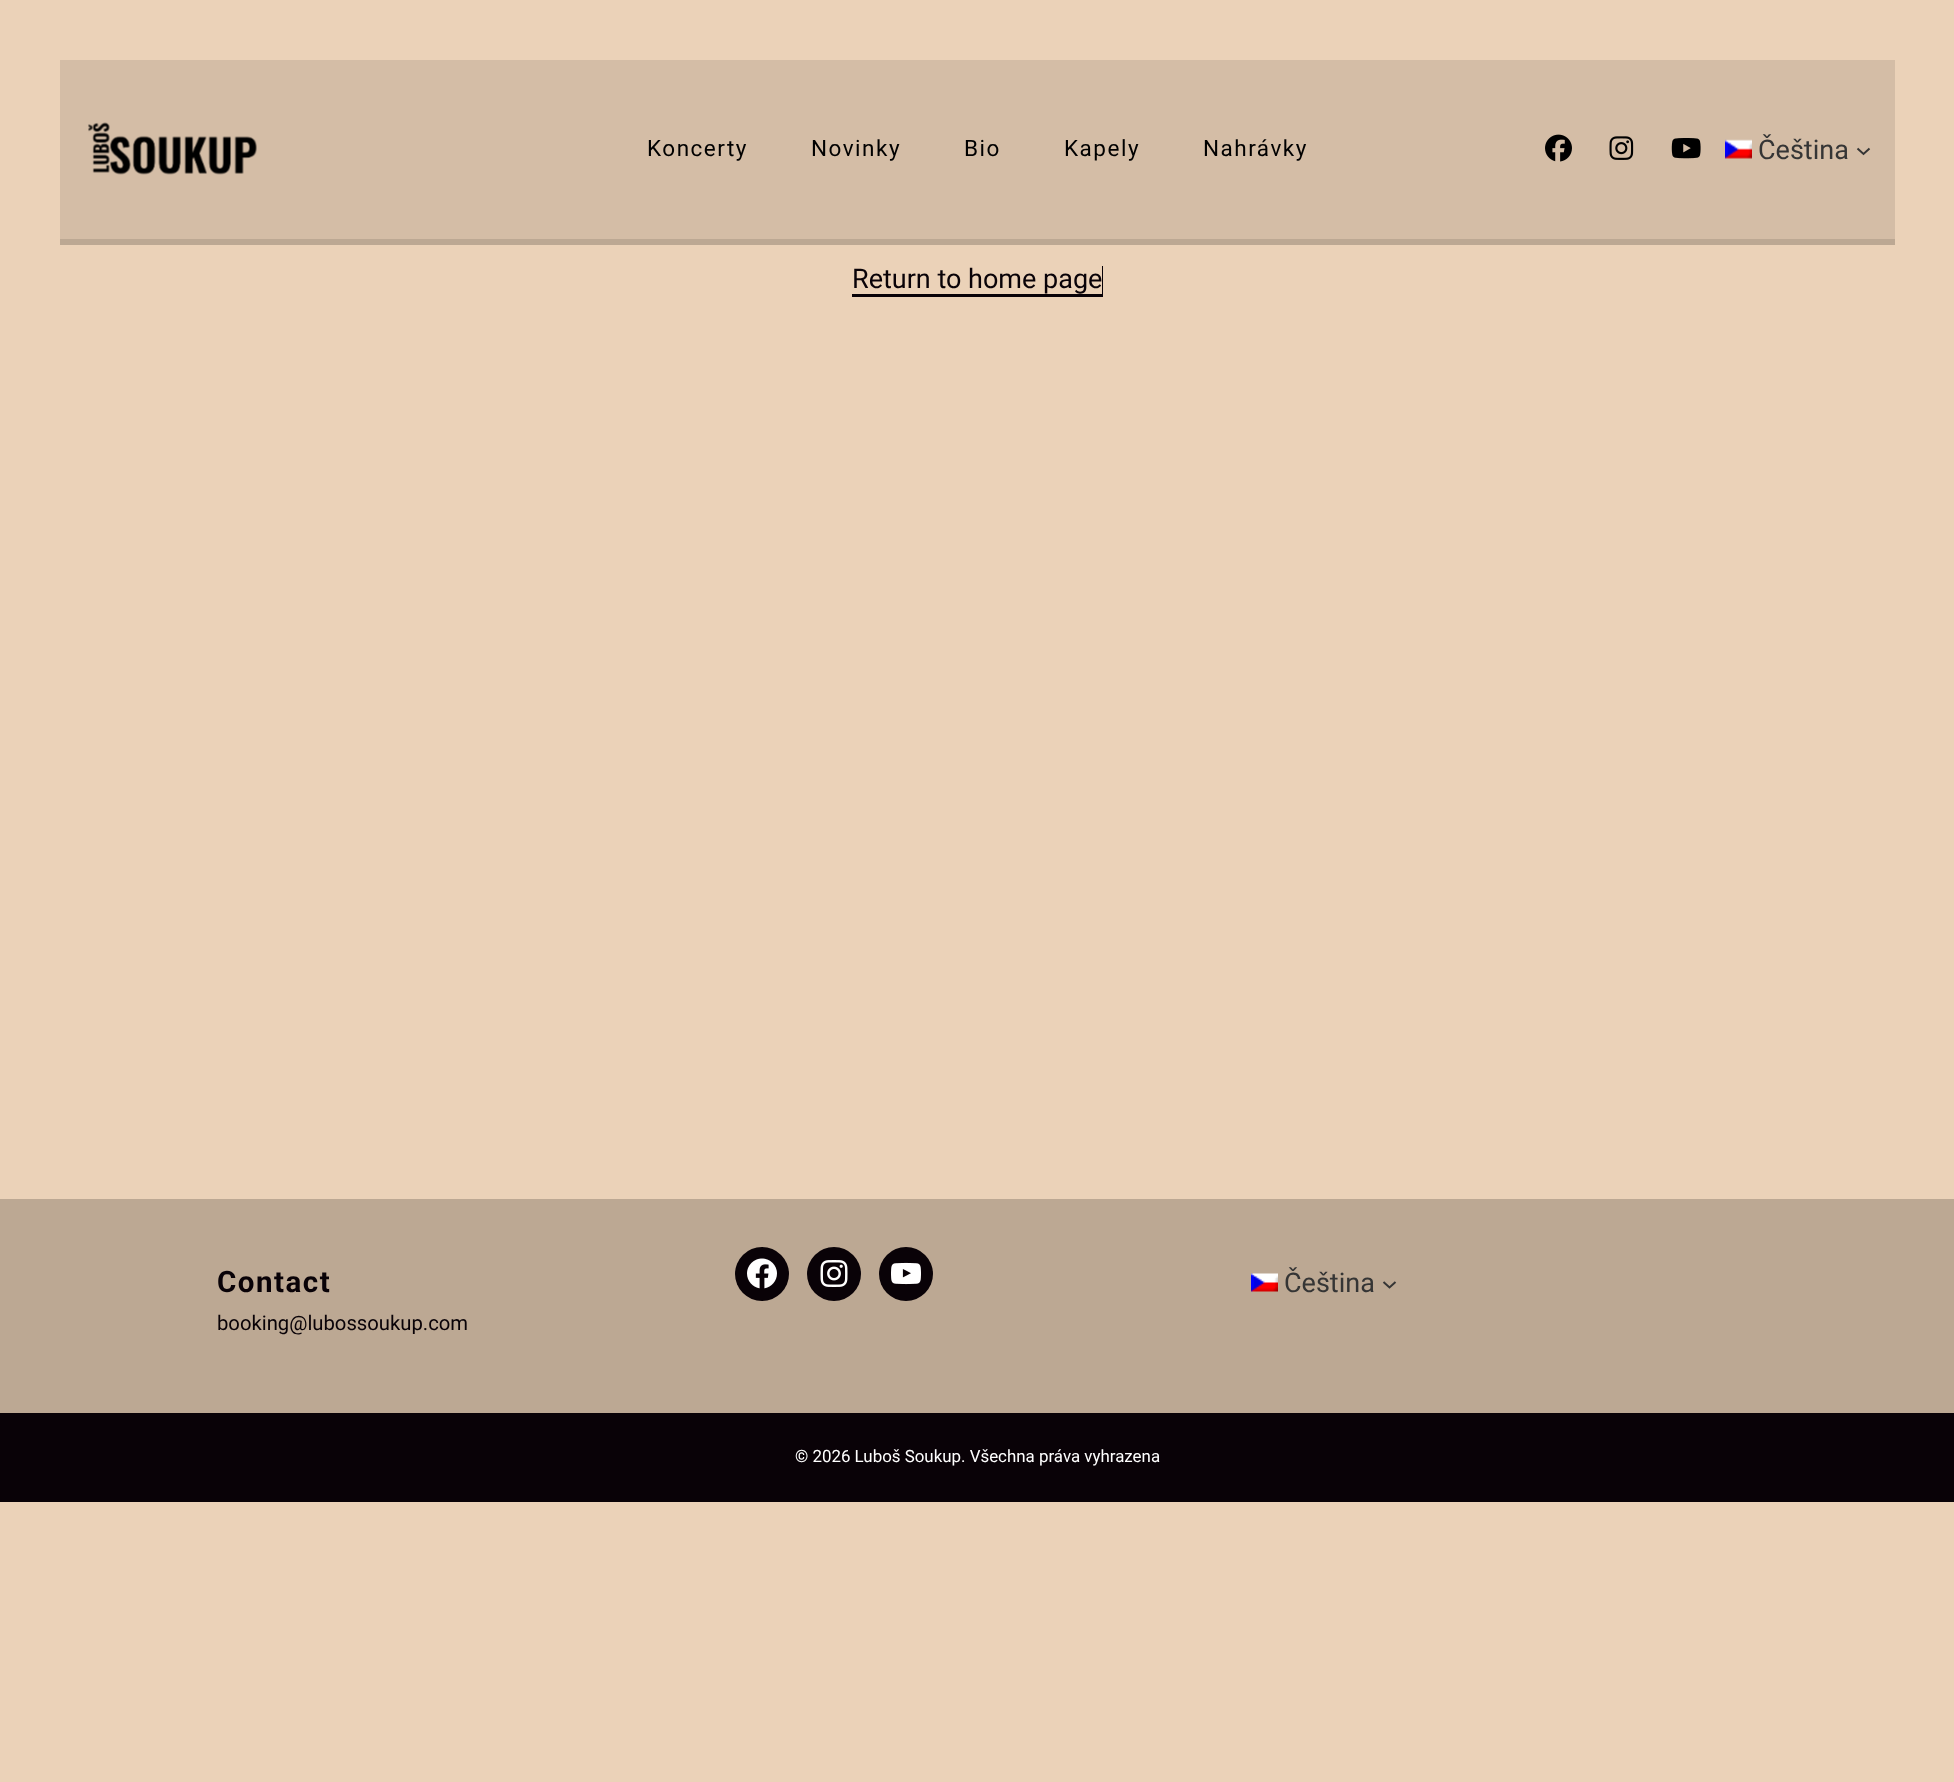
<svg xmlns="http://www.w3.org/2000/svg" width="1954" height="1782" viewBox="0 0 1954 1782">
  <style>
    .t1 { font: 22.5px Roboto; letter-spacing: 1.5px; fill: #000; }
    .t2 { font: 27px Roboto; fill: #353535; }
    .t3 { font: 27px Roboto; fill: #090207; }
    .t4 { font: bold 29.5px Roboto; letter-spacing: 1.5px; fill: #090207; }
    .t5 { font: 20.25px Roboto; fill: #090207; }
    .t6 { font: 16.9px Roboto; fill: #fff; }
  </style>
  <rect width="100%" height="100%" fill="#ebd2b8"/>
  <rect x="60" y="60" width="1835" height="179" fill="#d4bda6"/>
  <rect x="60" y="239" width="1835" height="6" fill="#bca893"/>
  <image x="88" y="122" width="169" height="53" href="images/1.png"/>
  <text x="647" y="156" class="t1">Koncerty</text>
  <text x="811" y="156" class="t1">Novinky</text>
  <text x="964" y="156" class="t1">Bio</text>
  <text x="1064" y="156" class="t1">Kapely</text>
  <text x="1203" y="156" class="t1">Nahrávky</text>
  <image x="1545" y="134" width="27" height="28" href="images/2.png"/>
  <image x="1609" y="136" width="25" height="24" href="images/3.png"/>
  <image x="1671" y="138" width="30" height="21" href="images/4.png"/>
  <image x="1725" y="139" width="27" height="20" href="images/5.png"/>
  <text x="1758" y="159" class="t2">Čeština</text>
  <path d="M1857.5 148.5L1863.5 154L1869.5 148.5" fill="none" stroke="#353535" stroke-width="2"/>
  <path d="M852 294V297H1103V266H1102V294Z" fill="#090207"/>
  <text x="852" y="288" class="t3">Return to home page</text>
  <rect x="0" y="1199" width="1954" height="214" fill="#bca893"/>
  <text x="217" y="1292" class="t4">Contact</text>
  <text x="217" y="1330" class="t5">booking@lubossoukup.com</text>
  <circle cx="762" cy="1274" r="27" fill="#090207"/>
  <image x="747" y="1258" width="30" height="31" href="images/6.png"/>
  <circle cx="834" cy="1274" r="27" fill="#090207"/>
  <image x="820" y="1260" width="28" height="27" href="images/7.png"/>
  <circle cx="906" cy="1274" r="27" fill="#090207"/>
  <image x="891" y="1262" width="30" height="23" href="images/8.png"/>
  <image x="1251" y="1273" width="27" height="19" href="images/9.png"/>
  <text x="1284" y="1292" class="t2">Čeština</text>
  <path d="M1383.5 1282L1389.5 1287.5L1395.5 1282" fill="none" stroke="#353535" stroke-width="2"/>
  <rect x="0" y="1413" width="1954" height="89" fill="#090207"/>
  <text x="795" y="1462" class="t6">© 2026 Luboš Soukup. Všechna práva vyhrazena</text>
</svg>
